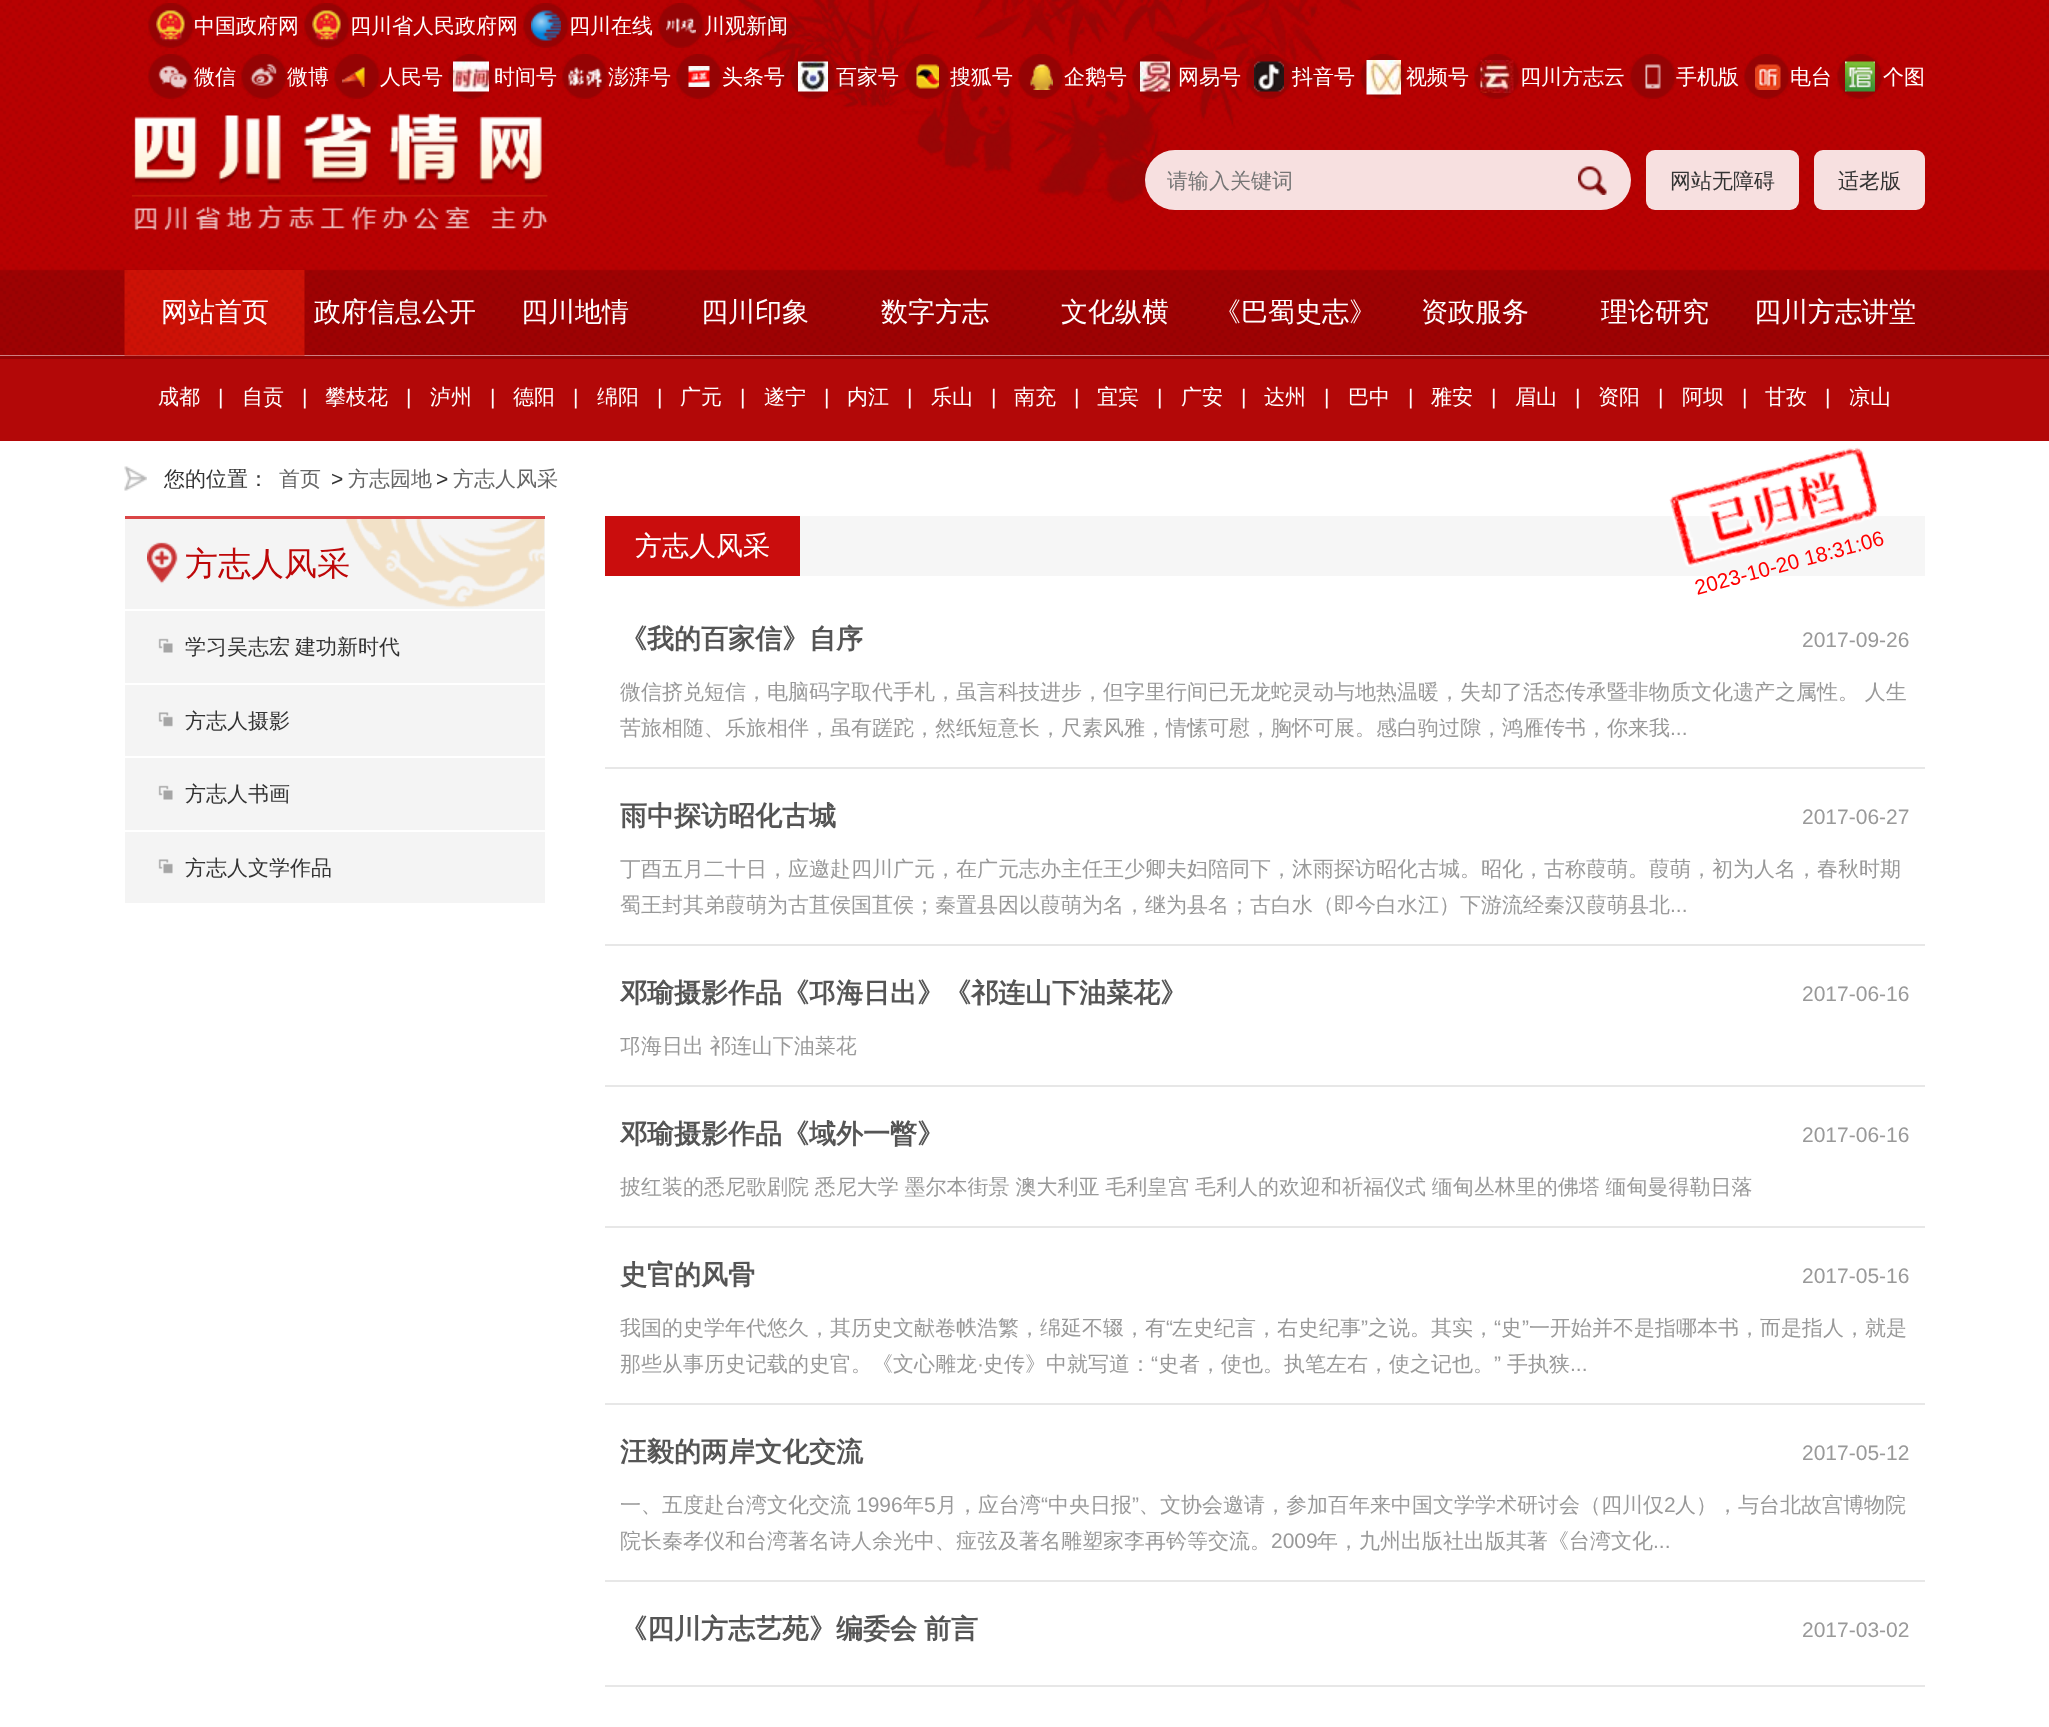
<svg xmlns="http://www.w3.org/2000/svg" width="2049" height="1727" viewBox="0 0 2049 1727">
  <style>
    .t1 { font: 500 21px WenQuanYi Zen Hei; fill: #fff; }
    .t2 { font: 500 21px WenQuanYi Zen Hei; fill: #757575; }
    .t3 { font: 500 21px WenQuanYi Zen Hei; fill: #333; }
    .t4 { font: 500 27px WenQuanYi Zen Hei; fill: #fff; }
    .t5 { font: 21px Liberation Sans; fill: #fff; }
    .t6 { font: 500 21px WenQuanYi Zen Hei; fill: #666; }
    .t7 { font: 21px Liberation Sans; fill: #333; }
    .t8 { font: 500 33px WenQuanYi Zen Hei; fill: #be0708; }
    .t9 { font: 21px Liberation Sans; fill: #f00; }
    .t10 { font: bold 27px WenQuanYi Zen Hei; fill: #555; }
    .t11 { font: 21px Liberation Sans; fill: #999; }
    .t12 { font: 500 21px WenQuanYi Zen Hei; fill: #999; }
  </style>
  <defs>
    <clipPath id="clip1"><rect x="620" y="668" width="1290" height="78"/></clipPath>
  </defs>
  <rect width="100%" height="100%" fill="#fff"/>
  <image x="0" y="0" width="2049" height="356" href="images/1.png"/>
  <image x="724" y="0" width="638" height="204" href="images/2.png"/>
  <image x="148" y="3" width="46" height="45" href="images/3.png"/>
  <image x="156" y="10" width="29" height="31" href="images/4.png"/>
  <text x="194" y="33" class="t1">中国政府网</text>
  <image x="304" y="3" width="46" height="45" href="images/5.png"/>
  <image x="312" y="10" width="29" height="31" href="images/6.png"/>
  <text x="350" y="33" class="t1">四川省人民政府网</text>
  <image x="523" y="3" width="46" height="45" href="images/7.png"/>
  <image x="531" y="10" width="30" height="31" href="images/8.png"/>
  <text x="569" y="33" class="t1">四川在线</text>
  <image x="658" y="3" width="46" height="45" href="images/9.png"/>
  <image x="666" y="17" width="30" height="17" href="images/10.png"/>
  <text x="704" y="33" class="t1">川观新闻</text>
  <image x="148" y="54" width="46" height="45" href="images/11.png"/>
  <image x="158" y="65" width="30" height="24" href="images/12.png"/>
  <text x="194" y="84" class="t1">微信</text>
  <image x="241" y="54" width="46" height="45" href="images/13.png"/>
  <image x="250" y="63" width="27" height="23" href="images/14.png"/>
  <text x="287" y="84" class="t1">微博</text>
  <image x="334" y="54" width="46" height="45" href="images/15.png"/>
  <image x="342" y="67" width="23" height="20" href="images/16.png"/>
  <text x="380" y="84" class="t1">人民号</text>
  <image x="448" y="54" width="46" height="45" href="images/17.png"/>
  <image x="453" y="61" width="36" height="31" href="images/18.png"/>
  <text x="494" y="84" class="t1">时间号</text>
  <image x="562" y="54" width="46" height="45" href="images/19.png"/>
  <image x="568" y="67" width="34" height="20" href="images/20.png"/>
  <text x="608" y="84" class="t1">澎湃号</text>
  <image x="676" y="54" width="46" height="45" href="images/21.png"/>
  <image x="688" y="66" width="22" height="21" href="images/22.png"/>
  <text x="722" y="84" class="t1">头条号</text>
  <image x="790" y="54" width="46" height="45" href="images/23.png"/>
  <image x="798" y="61" width="30" height="31" href="images/24.png"/>
  <text x="836" y="84" class="t1">百家号</text>
  <image x="904" y="54" width="46" height="45" href="images/25.png"/>
  <image x="916" y="64" width="23" height="25" href="images/26.png"/>
  <text x="950" y="84" class="t1">搜狐号</text>
  <image x="1018" y="54" width="46" height="45" href="images/15.png"/>
  <image x="1030" y="64" width="23" height="26" href="images/27.png"/>
  <text x="1064" y="84" class="t1">企鹅号</text>
  <image x="1132" y="54" width="46" height="45" href="images/28.png"/>
  <image x="1140" y="61" width="30" height="31" href="images/29.png"/>
  <text x="1178" y="84" class="t1">网易号</text>
  <image x="1246" y="54" width="46" height="45" href="images/30.png"/>
  <image x="1254" y="61" width="30" height="31" href="images/31.png"/>
  <text x="1292" y="84" class="t1">抖音号</text>
  <image x="1360" y="54" width="46" height="45" href="images/21.png"/>
  <image x="1366" y="60" width="35" height="35" href="images/32.png"/>
  <text x="1406" y="84" class="t1">视频号</text>
  <image x="1474" y="54" width="46" height="45" href="images/19.png"/>
  <image x="1480" y="60" width="34" height="33" href="images/33.png"/>
  <text x="1520" y="84" class="t1">四川方志云</text>
  <image x="1630" y="54" width="46" height="45" href="images/34.png"/>
  <image x="1645" y="64" width="16" height="25" href="images/35.png"/>
  <text x="1676" y="84" class="t1">手机版</text>
  <image x="1744" y="54" width="46" height="45" href="images/36.png"/>
  <image x="1755" y="64" width="26" height="26" href="images/37.png"/>
  <text x="1790" y="84" class="t1">电台</text>
  <image x="1837" y="54" width="46" height="45" href="images/13.png"/>
  <image x="1845" y="61" width="30" height="31" href="images/38.png"/>
  <text x="1883" y="84" class="t1">个图</text>
  <image x="132" y="113" width="416" height="117" href="images/39.png"/>
  <rect x="1145" y="150" width="486" height="60" rx="30" fill="#f7e0e0"/>
  <text x="1167" y="188" class="t2">请输入关键词</text>
  <image x="1578" y="166" width="29" height="29" href="images/40.png"/>
  <rect x="1646" y="150" width="153" height="60" rx="9" fill="#f7e0e0"/>
  <text x="1670" y="188" class="t3">网站无障碍</text>
  <rect x="1814" y="150" width="111" height="60" rx="9" fill="#f7e0e0"/>
  <text x="1838" y="188" class="t3">适老版</text>
  <image x="124" y="270" width="181" height="86" href="images/41.png"/>
  <text x="161" y="321" class="t4">网站首页</text>
  <text x="314" y="321" class="t4">政府信息公开</text>
  <text x="521" y="321" class="t4">四川地情</text>
  <text x="701" y="321" class="t4">四川印象</text>
  <text x="881" y="321" class="t4">数字方志</text>
  <text x="1061" y="321" class="t4">文化纵横</text>
  <text x="1214" y="321" class="t4">《巴蜀史志》</text>
  <text x="1421" y="321" class="t4">资政服务</text>
  <text x="1601" y="321" class="t4">理论研究</text>
  <text x="1754" y="321" class="t4">四川方志讲堂</text>
  <rect x="0" y="359" width="2049" height="82" fill="#b30808"/>
  <rect x="0" y="356" width="2049" height="3" fill="#950304"/>
  <text x="158" y="404" class="t1">成都</text>
  <text x="218" y="404" class="t5">|</text>
  <text x="242" y="404" class="t1">自贡</text>
  <text x="302" y="404" class="t5">|</text>
  <text x="325" y="404" class="t1">攀枝花</text>
  <text x="406" y="404" class="t5">|</text>
  <text x="430" y="404" class="t1">泸州</text>
  <text x="490" y="404" class="t5">|</text>
  <text x="513" y="404" class="t1">德阳</text>
  <text x="573" y="404" class="t5">|</text>
  <text x="597" y="404" class="t1">绵阳</text>
  <text x="657" y="404" class="t5">|</text>
  <text x="680" y="404" class="t1">广元</text>
  <text x="740" y="404" class="t5">|</text>
  <text x="764" y="404" class="t1">遂宁</text>
  <text x="824" y="404" class="t5">|</text>
  <text x="847" y="404" class="t1">内江</text>
  <text x="907" y="404" class="t5">|</text>
  <text x="931" y="404" class="t1">乐山</text>
  <text x="991" y="404" class="t5">|</text>
  <text x="1014" y="404" class="t1">南充</text>
  <text x="1074" y="404" class="t5">|</text>
  <text x="1097" y="404" class="t1">宜宾</text>
  <text x="1157" y="404" class="t5">|</text>
  <text x="1181" y="404" class="t1">广安</text>
  <text x="1241" y="404" class="t5">|</text>
  <text x="1264" y="404" class="t1">达州</text>
  <text x="1324" y="404" class="t5">|</text>
  <text x="1348" y="404" class="t1">巴中</text>
  <text x="1408" y="404" class="t5">|</text>
  <text x="1431" y="404" class="t1">雅安</text>
  <text x="1491" y="404" class="t5">|</text>
  <text x="1515" y="404" class="t1">眉山</text>
  <text x="1575" y="404" class="t5">|</text>
  <text x="1598" y="404" class="t1">资阳</text>
  <text x="1658" y="404" class="t5">|</text>
  <text x="1682" y="404" class="t1">阿坝</text>
  <text x="1742" y="404" class="t5">|</text>
  <text x="1765" y="404" class="t1">甘孜</text>
  <text x="1825" y="404" class="t5">|</text>
  <text x="1849" y="404" class="t1">凉山</text>
  <image x="124" y="466" width="23" height="25" href="images/42.png"/>
  <text x="164" y="486" class="t3">您的位置：</text>
  <text x="279" y="486" class="t6">首页</text>
  <text x="331" y="486" class="t7">&gt;</text>
  <text x="348" y="486" class="t6">方志园地</text>
  <text x="436" y="486" class="t7">&gt;</text>
  <text x="453" y="486" class="t6">方志人风采</text>
  <rect x="125" y="519" width="420" height="90" fill="#f4f4f4"/>
  <image x="147" y="519" width="398" height="89" href="images/43.png"/>
  <rect x="125" y="516" width="420" height="3" fill="#da4546"/>
  <text x="185" y="575" class="t8">方志人风采</text>
  <rect x="125" y="611" width="420" height="72" fill="#f4f4f4"/>
  <image x="158" y="638" width="15" height="15" href="images/44.png"/>
  <text x="185" y="654" class="t3">学习吴志宏</text>
  <text x="295" y="654" class="t3">建功新时代</text>
  <rect x="125" y="685" width="420" height="71" fill="#f4f4f4"/>
  <image x="158" y="712" width="15" height="15" href="images/45.png"/>
  <text x="185" y="728" class="t3">方志人摄影</text>
  <rect x="125" y="758" width="420" height="72" fill="#f4f4f4"/>
  <image x="158" y="785" width="15" height="15" href="images/44.png"/>
  <text x="185" y="801" class="t3">方志人书画</text>
  <rect x="125" y="832" width="420" height="71" fill="#f4f4f4"/>
  <image x="158" y="859" width="15" height="15" href="images/45.png"/>
  <text x="185" y="875" class="t3">方志人文学作品</text>
  <rect x="800" y="516" width="1125" height="60" fill="#f6f6f6"/>
  <image x="1669" y="447" width="209" height="120" href="images/46.png"/>
  <text x="1697" y="595" transform="rotate(-15 1697 595)" class="t9">2023-10-20 18:31:06</text>
  <rect x="605" y="516" width="195" height="60" fill="#ca0d0d"/>
  <text x="635" y="555" class="t4">方志人风采</text>
  <rect x="605" y="767" width="1320" height="2" fill="#e7e7e7"/>
  <text x="620" y="648" class="t10">《我的百家信》自序</text>
  <text x="1802" y="647" class="t11">2017-09-26</text>
  <text x="620" y="699" word-spacing="-0.5" class="t12">微信挤兑短信，电脑码字取代手札，虽言科技进步，但字里行间已无龙蛇灵动与地热温暖，失却了活态传承暨非物质文化遗产之属性。 人生</text>
  <g clip-path="url(#clip1)">
    <text x="620" y="735" class="t12">苦旅相随、乐旅相伴，虽有蹉跎，然纸短意长，尺素风雅，情愫可慰，胸怀可展。感白驹过隙，鸿雁传书，你来我</text>
  </g>
  <text x="1670" y="735" class="t11">...</text>
  <rect x="605" y="944" width="1320" height="2" fill="#e7e7e7"/>
  <text x="620" y="825" class="t10">雨中探访昭化古城</text>
  <text x="1802" y="824" class="t11">2017-06-27</text>
  <text x="620" y="876" class="t12">丁酉五月二十日，应邀赴四川广元，在广元志办主任王少卿夫妇陪同下，沐雨探访昭化古城。昭化，古称葭萌。葭萌，初为人名，春秋时期</text>
  <text x="620" y="912" class="t12">蜀王封其弟葭萌为古苴侯国苴侯；秦置县因以葭萌为名，继为县名；古白水（即今白水江）下游流经秦汉葭萌县北</text>
  <text x="1670" y="912" class="t11">...</text>
  <rect x="605" y="1085" width="1320" height="2" fill="#e7e7e7"/>
  <text x="620" y="1002" class="t10">邓瑜摄影作品《邛海日出》《祁连山下油菜花》</text>
  <text x="1802" y="1001" class="t11">2017-06-16</text>
  <text x="620" y="1053" word-spacing="-0.5" class="t12">邛海日出 祁连山下油菜花</text>
  <rect x="605" y="1226" width="1320" height="2" fill="#e7e7e7"/>
  <text x="620" y="1143" class="t10">邓瑜摄影作品《域外一瞥》</text>
  <text x="1802" y="1142" class="t11">2017-06-16</text>
  <text x="620" y="1194" word-spacing="-0.5" class="t12">披红装的悉尼歌剧院 悉尼大学 墨尔本街景 澳大利亚 毛利皇宫 毛利人的欢迎和祈福仪式 缅甸丛林里的佛塔 缅甸曼得勒日落</text>
  <rect x="605" y="1403" width="1320" height="2" fill="#e7e7e7"/>
  <text x="620" y="1284" class="t10">史官的风骨</text>
  <text x="1802" y="1283" class="t11">2017-05-16</text>
  <text x="620" y="1335" class="t12">我国的史学年代悠久，其历史文献卷帙浩繁，绵延不辍，有</text>
  <text x="1166" y="1335" class="t11">“</text>
  <text x="1172" y="1335" class="t12">左史纪言，右史纪事</text>
  <text x="1361" y="1335" class="t11">”</text>
  <text x="1368" y="1335" class="t12">之说。其实，</text>
  <text x="1494" y="1335" class="t11">“</text>
  <text x="1501" y="1335" class="t12">史</text>
  <text x="1522" y="1335" class="t11">”</text>
  <text x="1529" y="1335" class="t12">一开始并不是指哪本书，而是指人，就是</text>
  <text x="620" y="1371" class="t12">那些从事历史记载的史官。《文心雕龙</text>
  <text x="983" y="1371" class="t12">史传》中就写道：</text>
  <text x="1151" y="1371" class="t11">“</text>
  <text x="1158" y="1371" class="t12">史者，使也。执笔左右，使之记也。</text>
  <text x="1494" y="1371" class="t11">”</text>
  <text x="1507" y="1371" class="t12">手执狭</text>
  <text x="977" y="1371" class="t11">·</text>
  <text x="1570" y="1371" class="t11">...</text>
  <rect x="605" y="1580" width="1320" height="2" fill="#e7e7e7"/>
  <text x="620" y="1461" class="t10">汪毅的两岸文化交流</text>
  <text x="1802" y="1460" class="t11">2017-05-12</text>
  <text x="620" y="1512" class="t12">一、五度赴台湾文化交流</text>
  <text x="856" y="1512" class="t11">1996</text>
  <text x="903" y="1512" class="t12">年</text>
  <text x="924" y="1512" class="t11">5</text>
  <text x="936" y="1512" class="t12">月，应台湾</text>
  <text x="1041" y="1512" class="t11">“</text>
  <text x="1048" y="1512" class="t12">中央日报</text>
  <text x="1132" y="1512" class="t11">”</text>
  <text x="1139" y="1512" class="t12">、文协会邀请，参加百年来中国文学学术研讨会（四川仅</text>
  <text x="1664" y="1512" class="t11">2</text>
  <text x="1675" y="1512" class="t12">人），与台北故宫博物院</text>
  <text x="620" y="1548" class="t12">院长秦孝仪和台湾著名诗人余光中、痖弦及著名雕塑家李再钤等交流。</text>
  <text x="1271" y="1548" class="t11">2009</text>
  <text x="1317" y="1548" class="t12">年，九州出版社出版其著《台湾文化</text>
  <text x="1653" y="1548" class="t11">...</text>
  <rect x="605" y="1685" width="1320" height="2" fill="#e7e7e7"/>
  <text x="620" y="1638" word-spacing="-1" class="t10">《四川方志艺苑》编委会 前言</text>
  <text x="1802" y="1637" class="t11">2017-03-02</text>
</svg>
